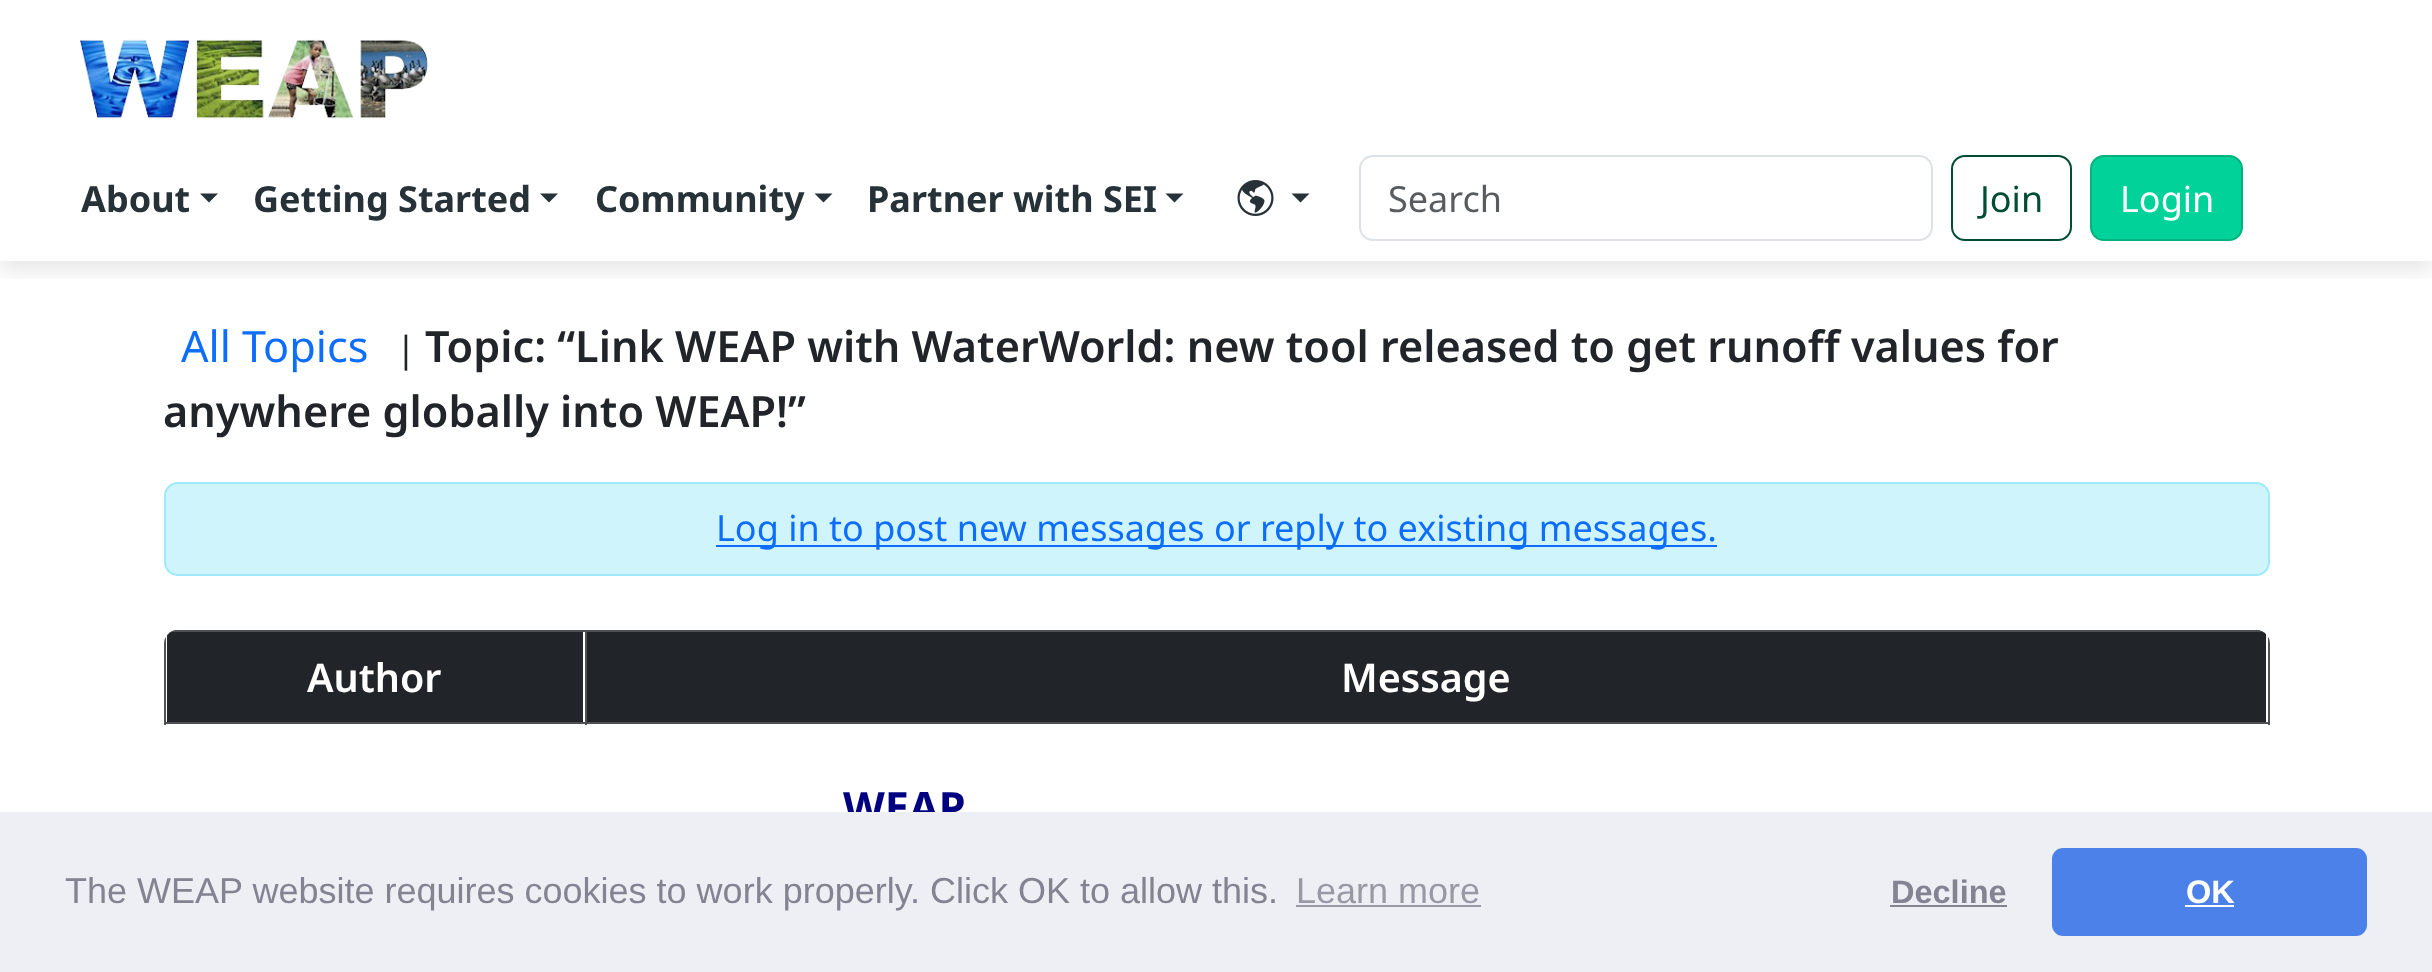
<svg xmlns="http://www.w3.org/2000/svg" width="2432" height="972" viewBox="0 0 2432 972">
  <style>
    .t1 { font: bold 36px Noto Sans; fill: #263238; }
    .t2 { font: 36px Noto Sans; fill: #595c5f; }
    .t3 { font: 36px Noto Sans; fill: #004d33; }
    .t4 { font: 36px Noto Sans; fill: #fff; }
    .t5 { font: 43.2px Noto Sans; fill: #0d6efd; }
    .t6 { font: 36px Noto Sans; fill: #212529; }
    .t7 { font: 600 43.2px Noto Sans; fill: #212529; }
    .t8 { font: 36px Noto Sans; fill: #0d6efd; }
    .t9 { font: 600 39.5px Noto Sans; fill: #fff; }
    .t10 { font: bold 43.2px Noto Sans; fill: #000080; }
    .t11 { font: 36px Liberation Sans; fill: #838391; }
    .t12 { font: 36px Liberation Sans; fill: #9899a5; }
    .t13 { font: bold 32.5px Liberation Sans; fill: #838391; }
    .t14 { font: bold 32.5px Liberation Sans; fill: #fff; }
  </style>
  <defs>
    <clipPath id="clip1"><rect x="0" y="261" width="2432" height="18"/></clipPath>
    <clipPath id="clip2"><rect x="164" y="630" width="2106" height="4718" rx="14"/></clipPath>
  </defs>
  <rect width="100%" height="100%" fill="#fff"/>
  <g clip-path="url(#clip1)">
    <rect x="0" y="9" width="2432" height="261" fill="#0000001a" filter="blur(11px)"/>
  </g>
  <image x="80" y="39" width="348" height="80" href="images/1.png"/>
  <text x="81" y="212" class="t1">About</text>
  <path d="M200 193.5H218L209 202.5Z" fill="#263238"/>
  <text x="253" y="212" class="t1">Getting Started</text>
  <path d="M540 193.5H558L549 202.5Z" fill="#263238"/>
  <text x="595" y="212" class="t1">Community</text>
  <path d="M814.5 193.5H832.5L823.5 202.5Z" fill="#263238"/>
  <text x="867" y="212" class="t1">Partner with SEI</text>
  <path d="M1165.5 193.5H1183.5L1174.5 202.5Z" fill="#263238"/>
  <image x="1237" y="180" width="37" height="36" href="images/2.png"/>
  <path d="M1291.5 193.5H1309.5L1300.5 202.5Z" fill="#263238"/>
  <rect x="1360" y="156" width="572" height="84" rx="13" fill="none" stroke="#dee2e6" stroke-width="2"/>
  <text x="1388" y="212" class="t2">Search</text>
  <rect x="1952" y="156" width="119" height="84" rx="13" fill="none" stroke="#004d33" stroke-width="2"/>
  <text x="1980" y="212" class="t3">Join</text>
  <rect x="2091" y="156" width="151" height="84" rx="13" fill="#00d29a" stroke="#00b37e" stroke-width="2"/>
  <text x="2120" y="212" class="t4">Login</text>
  <text x="181" y="362" class="t5">All Topics</text>
  <text x="396" y="362" class="t6">|</text>
  <text x="425" y="362" class="t7">Topic: “Link WEAP with WaterWorld: new tool released to get runoff values for</text>
  <text x="163" y="427" class="t7">anywhere globally into WEAP!”</text>
  <rect x="165" y="483" width="2104" height="92" rx="13" fill="#cff4fc" stroke="#9eeaf9" stroke-width="2"/>
  <rect x="716" y="545" width="1001" height="2" fill="#0d6efd"/>
  <text x="716" y="541" class="t8">Log in to post new messages or reply to existing messages.</text>
  <g clip-path="url(#clip2)">
    <rect x="167" y="630" width="416" height="92" fill="#212529"/>
    <rect x="587" y="630" width="1679" height="92" fill="#212529"/>
    <rect x="164" y="630" width="2106" height="2" fill="#4d5154"/>
  </g>
  <rect x="164" y="722" width="2106" height="2" fill="#4d5154"/>
  <g clip-path="url(#clip2)">
    <rect x="164" y="630" width="2" height="95" fill="#4d5154"/>
  </g>
  <text x="307" y="692" class="t9">Author</text>
  <g clip-path="url(#clip2)">
    <rect x="2268" y="630" width="2" height="95" fill="#4d5154"/>
  </g>
  <rect x="585" y="630" width="2" height="95" fill="#4d5154"/>
  <text x="1341" y="692" class="t9">Message</text>
  <text x="843" y="823" class="t10">WEAP</text>
  <rect x="0" y="812" width="2432" height="160" fill="#edeff5"/>
  <text x="65" y="903" class="t11">The WEAP website requires cookies to work properly. Click OK to allow this.</text>
  <text x="1296" y="903" class="t12">Learn more</text>
  <rect x="1296" y="905" width="185" height="2" fill="#9899a5"/>
  <text x="1891" y="903" class="t13">Decline</text>
  <rect x="1890" y="905" width="117" height="2" fill="#838391"/>
  <rect x="2052" y="848" width="315" height="88" rx="11" fill="#4b81e8"/>
  <text x="2186" y="903" class="t14">OK</text>
  <rect x="2185" y="905" width="49" height="2" fill="#fff"/>
</svg>
